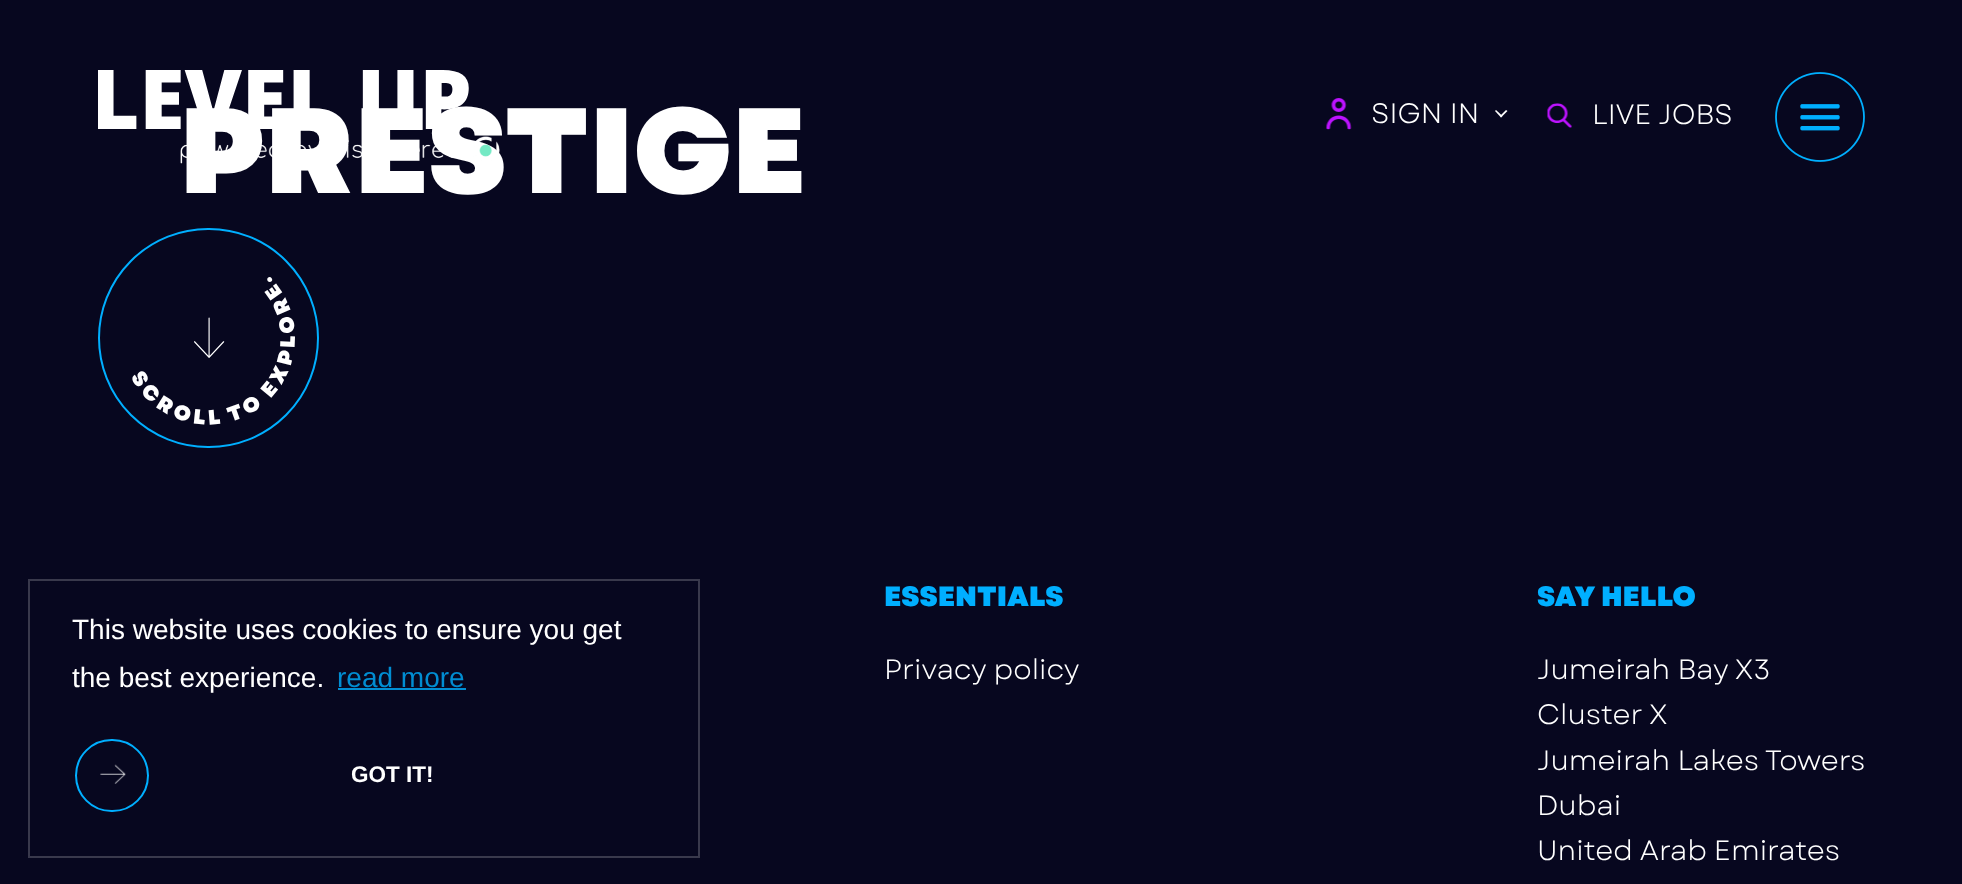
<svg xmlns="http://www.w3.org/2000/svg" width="1962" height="884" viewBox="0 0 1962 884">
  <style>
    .t1 { font: 900 121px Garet; fill: #fff; }
    .t2 { font: 28px Garet; fill: #fff; }
    .t3 { font: 900 28px Garet; fill: #00afff; }
    .t4 { font: 28px Liberation Sans; fill: #fff; }
    .t5 { font: 28px Liberation Sans; fill: #018dd2; }
    .t6 { font: bold 22.5px Liberation Sans; fill: #fff; }
  </style>
  <rect width="100%" height="100%" fill="#07071f"/>
  <text x="179" y="193" class="t1">PRESTIGE</text>
  <rect x="99" y="229" width="219" height="218" rx="109" fill="none" stroke="#00afff" stroke-width="2"/>
  <image x="132" y="277" width="163" height="148" href="images/1.png"/>
  <image x="194" y="317" width="31" height="41" href="images/2.png"/>
  <image x="98" y="70" width="402" height="94" href="images/3.png"/>
  <image x="1326" y="98" width="26" height="32" href="images/4.png"/>
  <text x="1371" y="123" class="t2">SIGN IN</text>
  <path d="M1506 110L1507.5 111L1501 117.5L1500 116Z" fill="#fff"/>
  <path d="M1496 110L1502.5 116L1501 117.5L1495 111Z" fill="#fff"/>
  <image x="1547" y="103" width="25" height="25" href="images/5.png"/>
  <text x="1592" y="124" class="t2">LIVE JOBS</text>
  <image x="1775" y="72" width="90" height="90" href="images/6.png"/>
  <text x="884" y="606" class="t3">ESSENTIALS</text>
  <text x="884" y="679" class="t2">Privacy policy</text>
  <text x="1537" y="606" class="t3">SAY HELLO</text>
  <text x="1537" y="679" class="t2">Jumeirah Bay X3</text>
  <text x="1537" y="724" class="t2">Cluster X</text>
  <text x="1537" y="770" class="t2">Jumeirah Lakes Towers</text>
  <text x="1537" y="815" class="t2">Dubai</text>
  <text x="1537" y="860" class="t2">United Arab Emirates</text>
  <rect x="29" y="580" width="670" height="277" fill="none" stroke="#39394c" stroke-width="2"/>
  <text x="72" y="639" class="t4">This website uses cookies to ensure you get</text>
  <text x="72" y="687" class="t4">the best experience.</text>
  <text x="337" y="687" class="t5">read more</text>
  <rect x="338" y="688" width="128" height="2" fill="#018dd2"/>
  <image x="100" y="764" width="26" height="20" href="images/7.png"/>
  <rect x="76" y="740" width="72" height="71" rx="35.5" fill="none" stroke="#00afff" stroke-width="2"/>
  <text x="351" y="782" class="t6">GOT IT!</text>
</svg>
